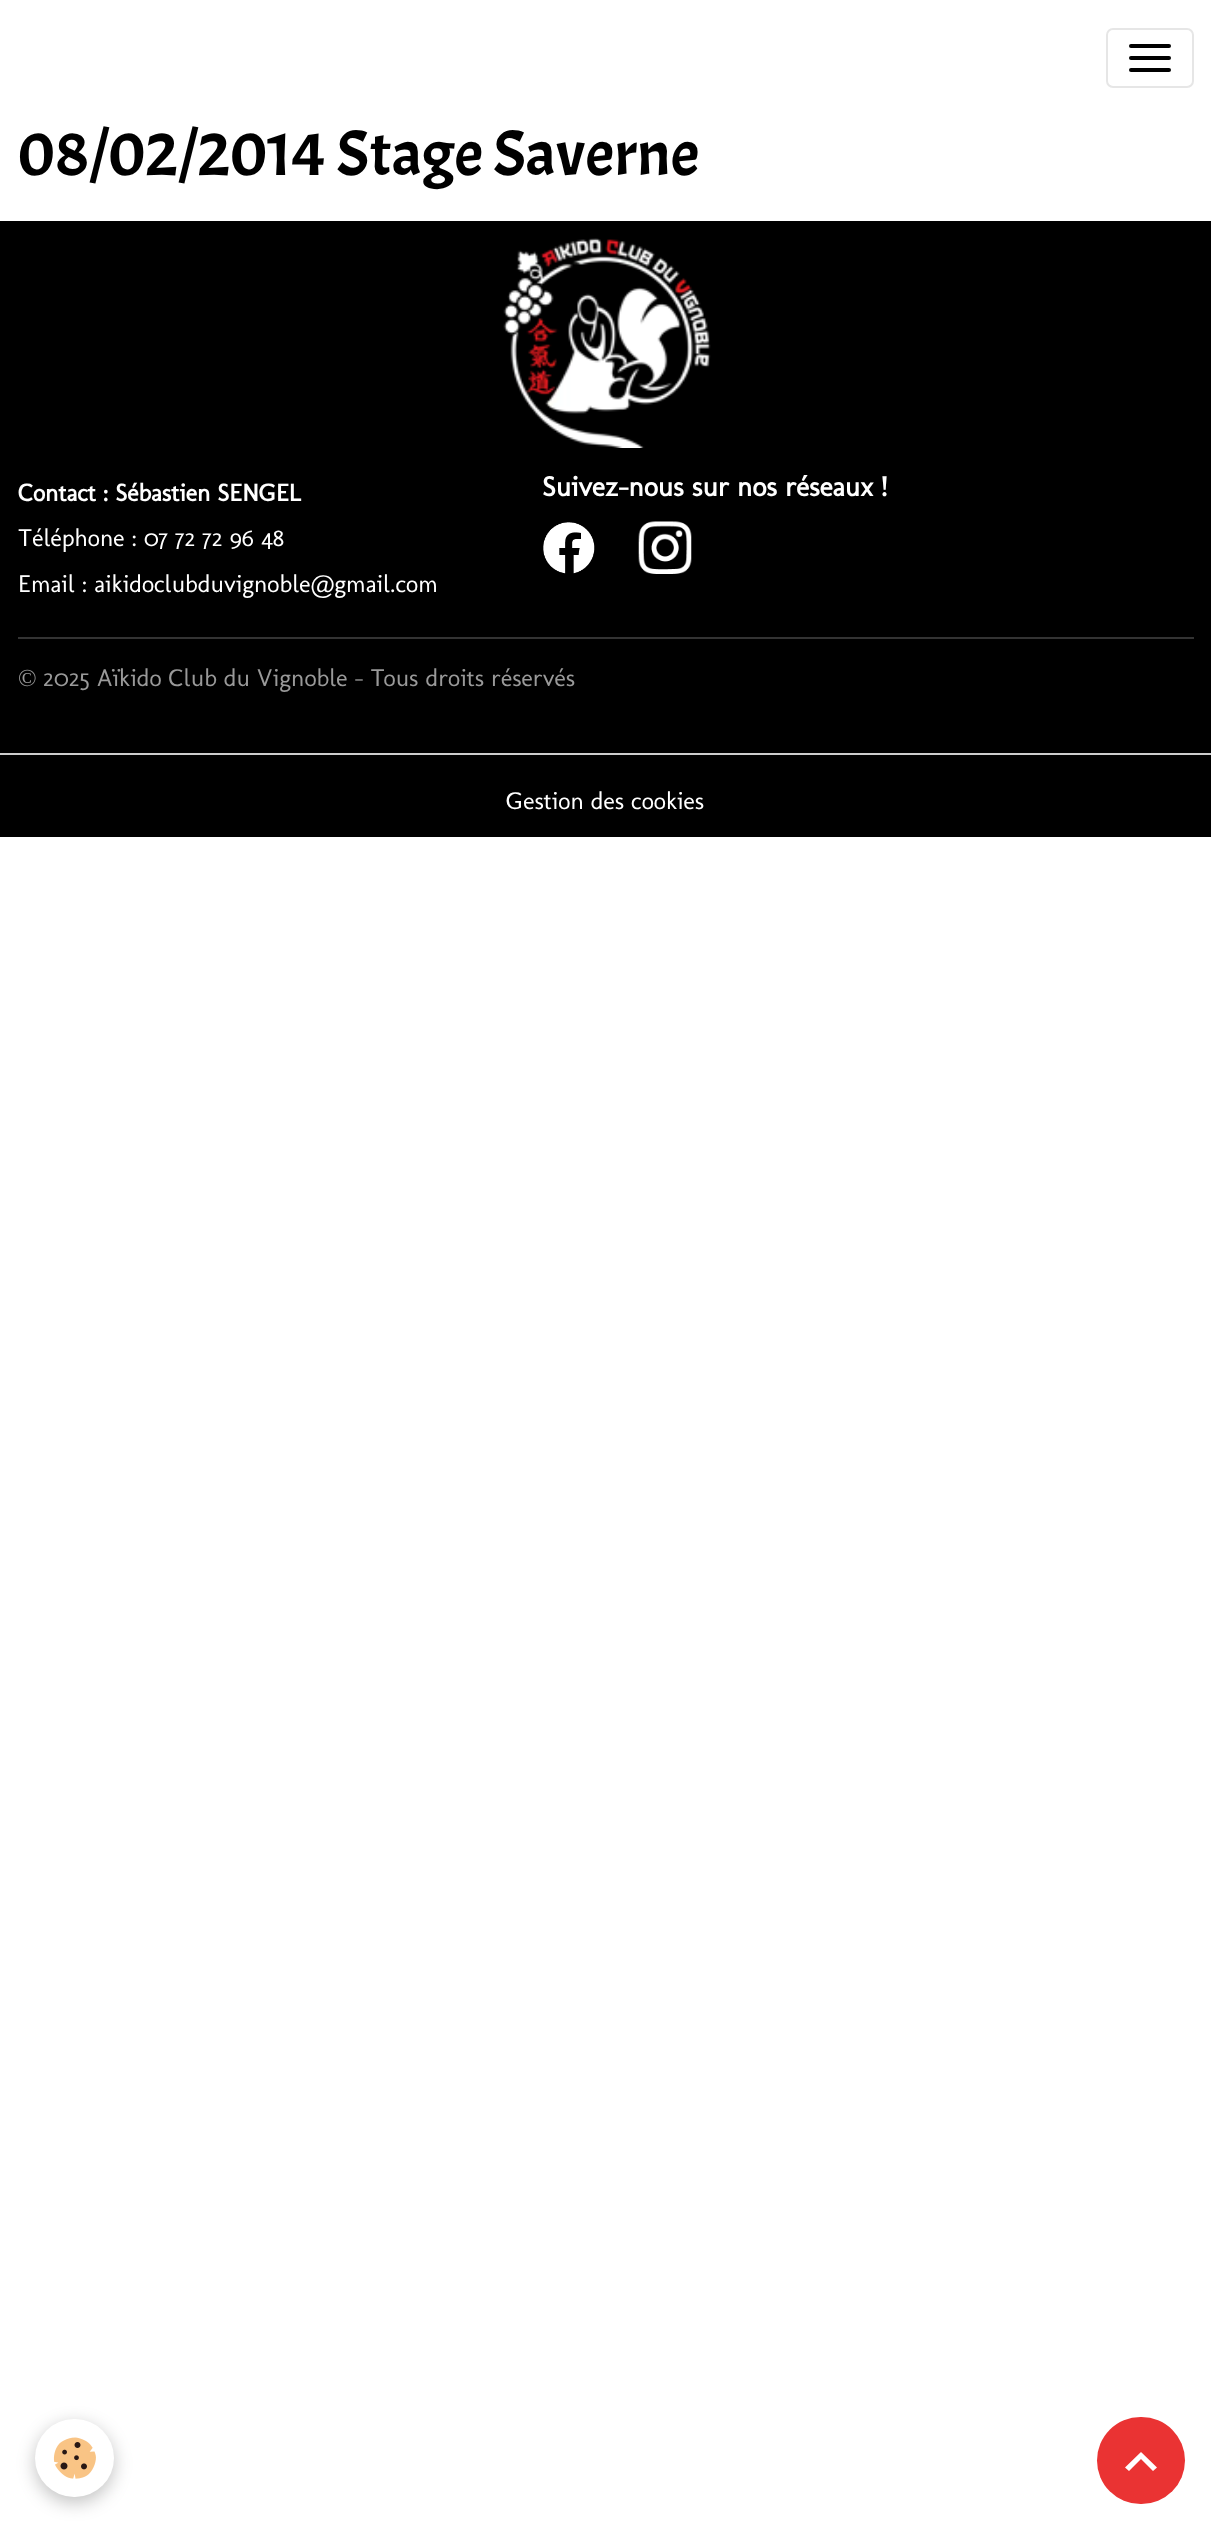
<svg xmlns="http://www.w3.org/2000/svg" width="1211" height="2529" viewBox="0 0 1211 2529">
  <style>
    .t1 { font: 64.4px Acme; fill: #000; }
    .t2 { font: bold 24.5px Molengo; fill: #fff; }
    .t3 { font: 24.5px Molengo; fill: #fff; }
    .t4 { font: bold 28px Molengo; fill: #fff; }
    .t5 { font: 24.5px Liberation Serif; fill: #999; }
    .t6 { font: 24.5px Molengo; fill: #999; }
  </style>
  <rect width="100%" height="100%" fill="#fff"/>
  <rect x="1107" y="29" width="86" height="58" rx="6" fill="none" stroke="#e6e6e6" stroke-width="2"/>
  <rect x="1129" y="44" width="42" height="4" rx="2" fill="#000"/>
  <rect x="1129" y="56" width="42" height="4" rx="2" fill="#000"/>
  <rect x="1129" y="68" width="42" height="4" rx="2" fill="#000"/>
  <text x="18" y="175" class="t1">08/02/2014 Stage Saverne</text>
  <rect x="0" y="221" width="1211" height="616" fill="#000"/>
  <image x="503" y="238" width="208" height="210" href="images/1.png"/>
  <text x="18" y="501" class="t2">Contact : Sébastien SENGEL</text>
  <text x="18" y="546" class="t3">Téléphone : 07 72 72 96 48</text>
  <text x="18" y="592" class="t3">Email : aikidoclubduvignoble@gmail.com</text>
  <text x="542" y="496" class="t4">Suivez-nous sur nos réseaux !</text>
  <image x="543" y="522" width="52" height="52" href="images/2.png"/>
  <image x="638" y="521" width="54" height="53" href="images/3.png"/>
  <rect x="18" y="637" width="1176" height="2" fill="#333"/>
  <text x="18" y="686" class="t5">©</text>
  <text x="43" y="686" class="t6">2025 Aïkido Club du Vignoble – Tous droits réservés</text>
  <rect x="0" y="753" width="1211" height="2" fill="#ccc"/>
  <text x="506" y="809" class="t3">Gestion des cookies</text>
  <rect x="35" y="2424" width="79" height="79" rx="39.5" fill="#0000003d" filter="blur(9px)"/>
  <rect x="35" y="2419" width="79" height="78" rx="39" fill="#fff"/>
  <image x="53" y="2437" width="43" height="42" href="images/4.png"/>
  <rect x="1097" y="2417" width="88" height="87" rx="43.5" fill="#ea3333"/>
  <path d="M1141 2452L1157 2467.5L1153 2471L1141 2459L1129 2471L1125 2467.5Z" fill="#fff"/>
</svg>
